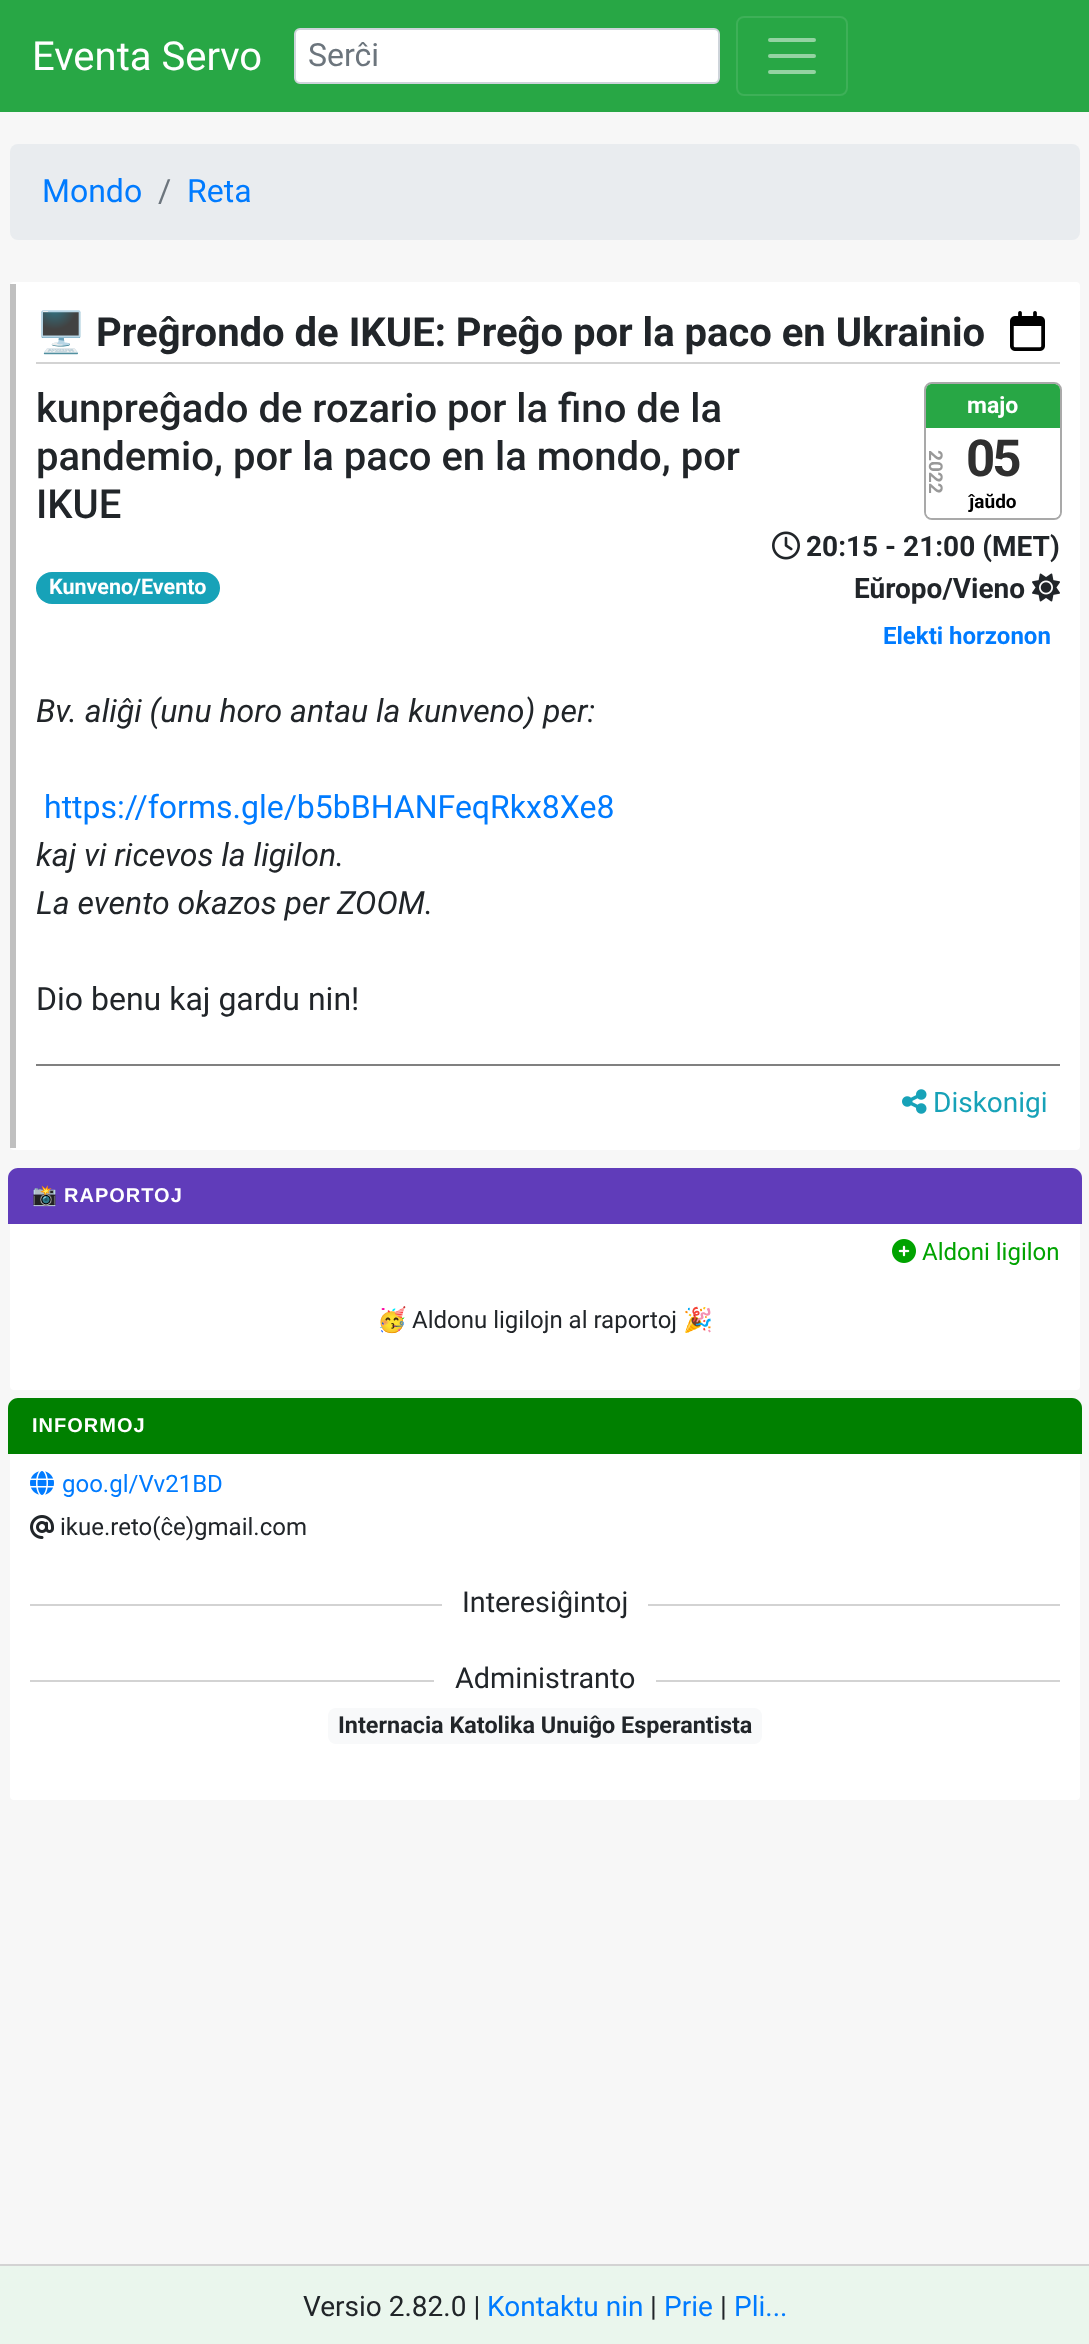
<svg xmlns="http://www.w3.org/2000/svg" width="1089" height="2344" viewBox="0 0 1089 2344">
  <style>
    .t1 { font: 40px Roboto; fill: #fff; }
    .t2 { font: 32px Roboto; fill: #6c757d; }
    .t3 { font: 32px Roboto; fill: #007bff; }
    .t4 { font: bold 40px Noto Color Emoji; fill: #212529; }
    .t5 { font: bold 40px Roboto; fill: #212529; }
    .t6 { font: 500 40px Roboto; fill: #212529; }
    .t7 { font: bold 23px Roboto; fill: #fff; }
    .t8 { font: bold 19px Roboto; fill: #999; }
    .t9 { font: bold 51px Roboto; letter-spacing: -3px; fill: #2f2f2f; }
    .t10 { font: bold 19px Roboto; fill: #000; }
    .t11 { font: bold 28px Roboto; fill: #212529; }
    .t12 { font: bold 24px Roboto; fill: #007bff; }
    .t13 { font: bold 21.5px Roboto; fill: #fff; }
    .t14 { font: italic 32px Roboto; fill: #212529; }
    .t15 { font: 32px Roboto; fill: #212529; }
    .t16 { font: 28px Roboto; fill: #17a2b8; }
    .t17 { font: bold 20px Noto Color Emoji; letter-spacing: 1px; fill: #fff; }
    .t18 { font: bold 20px Liberation Sans; letter-spacing: 1px; fill: #fff; }
    .t19 { font: 24px Roboto; fill: #00a300; }
    .t20 { font: 24px Noto Color Emoji; fill: #212529; }
    .t21 { font: 24px Roboto; fill: #212529; }
    .t22 { font: 24px Roboto; fill: #007bff; }
    .t23 { font: 28.75px Roboto; fill: #212529; }
    .t24 { font: bold 23.4px Roboto; fill: #212529; }
    .t25 { font: 28px Roboto; fill: #212529; }
    .t26 { font: 28px Roboto; fill: #007bff; }
  </style>
  <rect width="100%" height="100%" fill="#f7f7f7"/>
  <rect x="0" y="0" width="1089" height="112" fill="#28a745"/>
  <text x="32" y="70" class="t1">Eventa Servo</text>
  <rect x="295" y="29" width="424" height="54" rx="5" fill="#fff" stroke="#ced4da" stroke-width="2"/>
  <text x="308" y="66" class="t2">Serĉi</text>
  <rect x="737" y="17" width="110" height="78" rx="7" fill="none" stroke="#3eb058" stroke-width="2"/>
  <path d="M770 40H814M770 56H814M770 72H814" fill="none" stroke="#94d3a2" stroke-width="4" stroke-linecap="round"/>
  <rect x="10" y="144" width="1070" height="96" rx="8" fill="#e9ecef"/>
  <text x="42" y="202" class="t3">Mondo</text>
  <text x="158" y="202" class="t2">/</text>
  <text x="187" y="202" class="t3">Reta</text>
  <rect x="10" y="282" width="1070" height="868" rx="4" fill="#fff"/>
  <rect x="10" y="284" width="6" height="864" fill="#c0c0c0"/>
  <rect x="36" y="362" width="1024" height="2" fill="#d3d3d3"/>
  <text x="36" y="346" class="t4">🖥</text>
  <text x="96" y="346" class="t5">Preĝrondo de IKUE: Preĝo por la paco en Ukrainio</text>
  <image x="1010" y="311" width="35" height="40" href="images/1.png"/>
  <text x="36" y="422" class="t6">kunpreĝado de rozario por la fino de la</text>
  <text x="36" y="470" class="t6">pandemio, por la paco en la mondo, por</text>
  <text x="36" y="518" class="t6">IKUE</text>
  <rect x="925" y="383" width="136" height="136" rx="7" fill="none" stroke="#a9a9a9" stroke-width="2"/>
  <rect x="926" y="384" width="134" height="134" rx="6" fill="#fff"/>
  <path d="M932 384H1054C1057.5 384 1060 386.5 1060 390V428H926V390C926 386.5 928.5 384 932 384Z" fill="#28a745"/>
  <text x="967" y="413" class="t7">majo</text>
  <text x="929" y="450" transform="rotate(90 929 450)" class="t8">2022</text>
  <text x="966" y="476" class="t9">05</text>
  <text x="969" y="508" class="t10">ĵaŭdo</text>
  <image x="772" y="531" width="28" height="29" href="images/2.png"/>
  <text x="806" y="556" class="t11">20:15 - 21:00 (MET)</text>
  <text x="854" y="598" class="t11">Eŭropo/Vieno</text>
  <image x="1032" y="573" width="28" height="29" href="images/3.png"/>
  <text x="883" y="644" class="t12">Elekti horzonon</text>
  <rect x="36" y="572" width="184" height="32" rx="16" fill="#17a2b8"/>
  <text x="49" y="594" class="t13">Kunveno/Evento</text>
  <text x="36" y="722" class="t14">Bv. aliĝi (unu horo antau la kunveno) per:</text>
  <text x="44" y="818" class="t3">https://forms.gle/b5bBHANFeqRkx8Xe8</text>
  <text x="36" y="866" class="t14">kaj vi ricevos la ligilon.</text>
  <text x="36" y="914" class="t14">La evento okazos per ZOOM.</text>
  <text x="36" y="1010" class="t15">Dio benu kaj gardu nin!</text>
  <rect x="36" y="1064" width="1024" height="2" fill="#808080"/>
  <image x="902" y="1089" width="25" height="25" href="images/4.png"/>
  <text x="933" y="1112" class="t16">Diskonigi</text>
  <rect x="10" y="1170" width="1070" height="220" rx="4" fill="#fff"/>
  <path d="M18 1168H1072C1077.5 1168 1082 1172.5 1082 1178V1224H8V1178C8 1172.5 12.5 1168 18 1168Z" fill="#603cba"/>
  <text x="32" y="1202" class="t17">📸</text>
  <text x="64" y="1202" class="t18">RAPORTOJ</text>
  <image x="892" y="1239" width="24" height="24" href="images/5.png"/>
  <text x="922" y="1260" class="t19">Aldoni ligilon</text>
  <text x="377" y="1328" class="t20">🥳</text>
  <text x="412" y="1328" class="t21">Aldonu ligilojn al raportoj</text>
  <text x="683" y="1328" class="t20">🎉</text>
  <rect x="10" y="1400" width="1070" height="400" rx="4" fill="#fff"/>
  <path d="M18 1398H1072C1077.5 1398 1082 1402.5 1082 1408V1454H8V1408C8 1402.5 12.5 1398 18 1398Z" fill="#008000"/>
  <text x="32" y="1432" class="t18">INFORMOJ</text>
  <image x="30" y="1471" width="24" height="24" href="images/6.png"/>
  <text x="62" y="1492" class="t22">goo.gl/Vv21BD</text>
  <image x="30" y="1515" width="24" height="24" href="images/7.png"/>
  <text x="60" y="1535" class="t21">ikue.reto(ĉe)gmail.com</text>
  <rect x="30" y="1604" width="412" height="2" fill="#d3d3d3"/>
  <text x="462" y="1612" class="t23">Interesiĝintoj</text>
  <rect x="648" y="1604" width="412" height="2" fill="#d3d3d3"/>
  <rect x="30" y="1680" width="404" height="2" fill="#d3d3d3"/>
  <text x="455" y="1688" class="t23">Administranto</text>
  <rect x="656" y="1680" width="404" height="2" fill="#d3d3d3"/>
  <rect x="328" y="1708" width="434" height="36" rx="8" fill="#f8f9fa"/>
  <text x="338" y="1733" class="t24">Internacia Katolika Unuiĝo Esperantista</text>
  <rect x="0" y="2266" width="1089" height="78" fill="#eaf6ed"/>
  <rect x="0" y="2264" width="1089" height="2" fill="#d3d3d3"/>
  <text x="303" y="2316" class="t25">Versio 2.82.0 |</text>
  <text x="487" y="2316" class="t26">Kontaktu nin</text>
  <text x="650" y="2316" class="t25">|</text>
  <text x="664" y="2316" class="t26">Prie</text>
  <text x="720" y="2316" class="t25">|</text>
  <text x="734" y="2316" class="t26">Pli...</text>
</svg>
